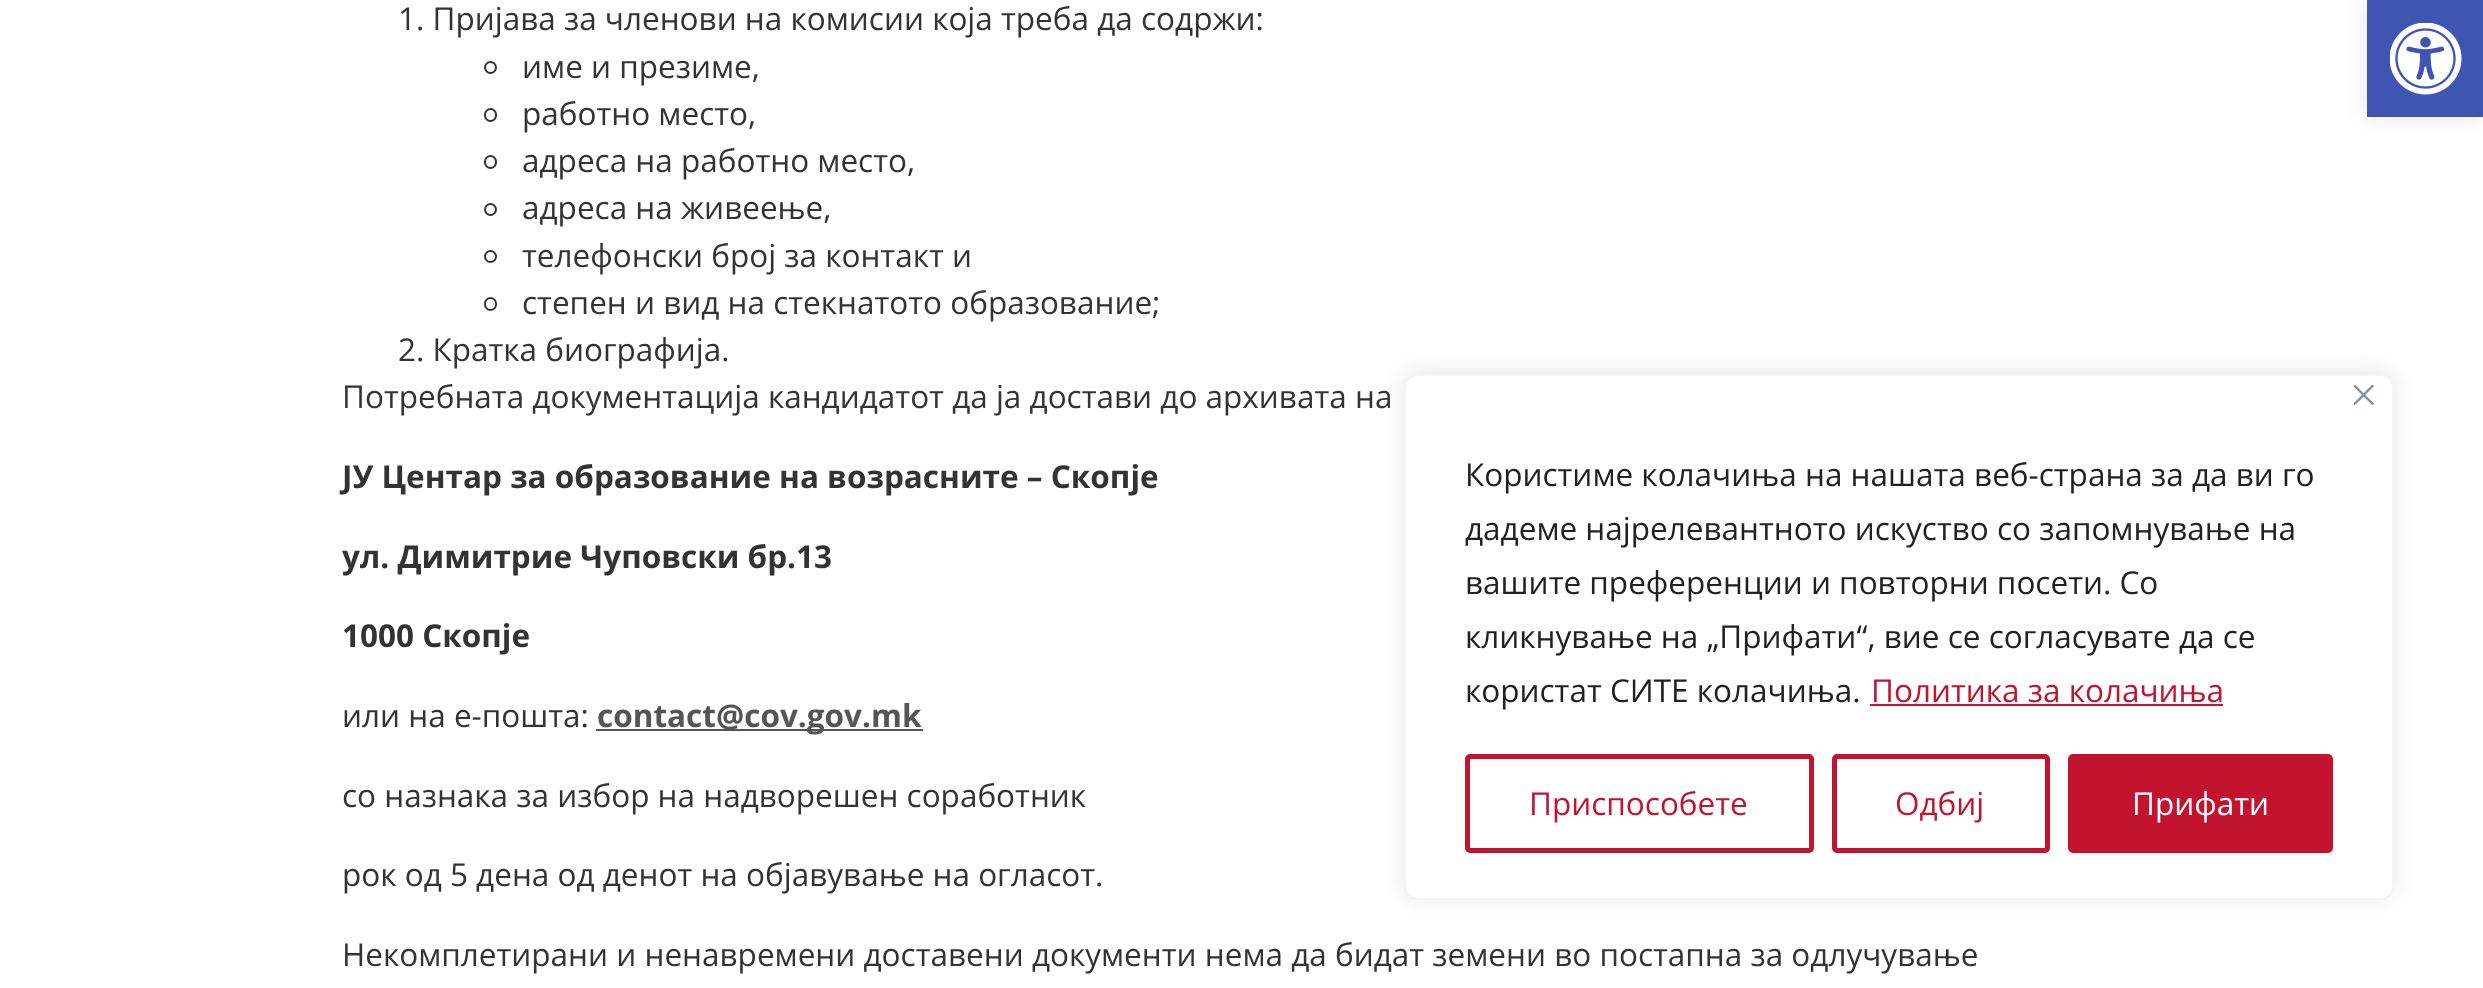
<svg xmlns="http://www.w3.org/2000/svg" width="2483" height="988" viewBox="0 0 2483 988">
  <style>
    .t1 { font: 31.5px Open Sans; fill: #333; }
    .t2 { font: bold 31.5px Open Sans; fill: #333; }
    .t3 { font: bold 31.5px Open Sans; fill: #555; }
    .t4 { font: 31.5px Open Sans; fill: #212121; }
    .t5 { font: 31.5px Open Sans; fill: #c2142e; }
    .t6 { font: 31.5px Open Sans; fill: #fff; }
  </style>
  <rect width="100%" height="100%" fill="#fff"/>
  <text x="398" y="30" class="t1">1. Пријава за членови на комисии која треба да содржи:</text>
  <circle cx="490.5" cy="67.5" r="5.5" fill="none" stroke="#333" stroke-width="2"/>
  <text x="522" y="78" class="t1">име и презиме,</text>
  <rect x="485" y="109" width="11" height="12" rx="5.5" fill="none" stroke="#333" stroke-width="2"/>
  <text x="522" y="125" class="t1">работно место,</text>
  <rect x="485" y="156" width="11" height="12" rx="5.5" fill="none" stroke="#333" stroke-width="2"/>
  <text x="522" y="172" class="t1">адреса на работно место,</text>
  <circle cx="490.5" cy="209.5" r="5.5" fill="none" stroke="#333" stroke-width="2"/>
  <text x="522" y="219" class="t1">адреса на живеење,</text>
  <circle cx="490.5" cy="256.5" r="5.5" fill="none" stroke="#333" stroke-width="2"/>
  <text x="522" y="267" class="t1">телефонски број за контакт и</text>
  <rect x="485" y="298" width="11" height="12" rx="5.5" fill="none" stroke="#333" stroke-width="2"/>
  <text x="522" y="314" class="t1">степен и вид на стекнатото образование;</text>
  <text x="398" y="361" class="t1">2. Кратка биографија.</text>
  <text x="342" y="408" class="t1">Потребната документација кандидатот да ја достави до архивата на</text>
  <text x="342" y="488" class="t2">ЈУ Центар за образование на возрасните – Скопје</text>
  <text x="342" y="568" class="t2">ул. Димитрие Чуповски бр.13</text>
  <text x="342" y="647" class="t2">1000 Скопје</text>
  <text x="342" y="727" class="t1">или на е-пошта:</text>
  <rect x="596" y="729" width="327" height="2" fill="#555"/>
  <text x="597" y="727" class="t3">contact@cov.gov.mk</text>
  <text x="342" y="807" class="t1">со назнака за избор на надворешен соработник</text>
  <text x="342" y="886" class="t1">рок од 5 дена од денот на објавување на огласот.</text>
  <text x="342" y="966" class="t1">Некомплетирани и ненавремени доставени документи нема да бидат земени во постапна за одлучување</text>
  <rect x="2367" y="0" width="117" height="117" fill="#0000001a" filter="blur(11px)"/>
  <rect x="2367" y="0" width="116" height="117" fill="#4054b2"/>
  <image x="2390" y="23" width="72" height="72" href="images/1.png"/>
  <rect x="1404" y="371" width="990" height="527" rx="14" fill="#acabab4d" filter="blur(11px)"/>
  <rect x="1405" y="375" width="988" height="524" rx="13" fill="#fff" stroke="#f4f4f4" stroke-width="2"/>
  <image x="2354" y="385" width="20" height="20" href="images/2.png"/>
  <text x="1465" y="486" class="t4">Користиме колачиња на нашата веб-страна за да ви го</text>
  <text x="1465" y="540" class="t4">дадеме најрелевантното искуство со запомнување на</text>
  <text x="1465" y="594" class="t4">вашите преференции и повторни посети. Со</text>
  <text x="1465" y="648" class="t4">кликнување на „Прифати“, вие се согласувате да се</text>
  <text x="1465" y="702" class="t4">користат СИТЕ колачиња.</text>
  <text x="1871" y="702" class="t5">Политика за колачиња</text>
  <rect x="1870" y="704" width="353" height="2" fill="#c2142e"/>
  <rect x="1467.5" y="756.5" width="344" height="94" rx="2.5" fill="none" stroke="#c2142e" stroke-width="5"/>
  <text x="1529" y="815" class="t5">Приспособете</text>
  <rect x="1834.5" y="756.5" width="213" height="94" rx="2.5" fill="none" stroke="#c2142e" stroke-width="5"/>
  <text x="1895" y="815" class="t5">Одбиј</text>
  <rect x="2070.5" y="756.5" width="260" height="94" rx="2.5" fill="#c2142e" stroke="#c2142e" stroke-width="5"/>
  <text x="2132" y="815" class="t6">Прифати</text>
</svg>
